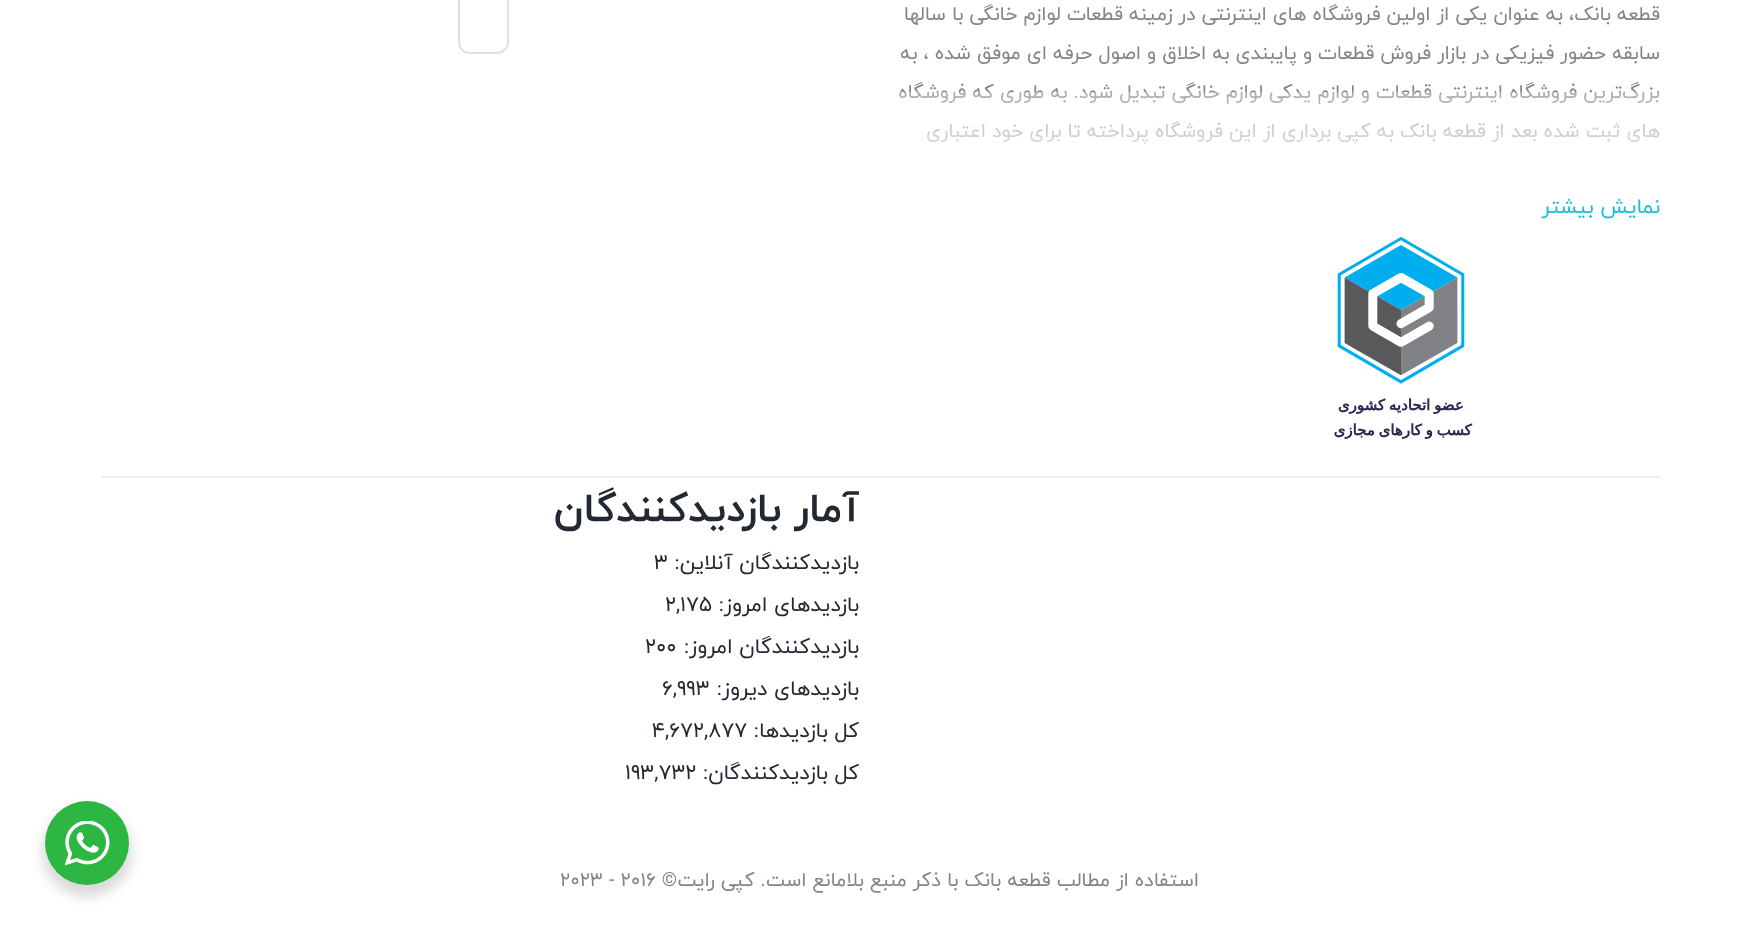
<svg xmlns="http://www.w3.org/2000/svg" width="1759" height="930" viewBox="0 0 1759 930">
  <style>
    .t1 { font: 19.5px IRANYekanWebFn; direction: rtl; fill: #81858b; }
    .t2 { font: 21px IRANYekanWebFn; direction: rtl; fill: #19bfd3; }
    .t3 { font: bold 40.5px IRANYekanWebFn; direction: rtl; fill: #232933; }
    .t4 { font: 21px IRANYekanWebFn; direction: rtl; fill: #232933; }
    .t5 { font: 21px IRANYekanWebFn; fill: #232933; }
    .t6 { font: 19.5px IRANYekanWebFn; fill: #81858b; }
  </style>
  <defs>
    <linearGradient id="g1" gradientUnits="userSpaceOnUse" x1="1278" y1="91" x2="1278" y2="188"><stop offset="0" stop-color="#fff" stop-opacity="0.3"/><stop offset="1" stop-color="#fff"/></linearGradient>
  </defs>
  <rect width="100%" height="100%" fill="#fff"/>
  <rect x="101" y="476" width="1560" height="2" fill="#f0f0f1"/>
  <text x="1660" y="20" class="t1">قطعه بانک، به عنوان یکی از اولین فروشگاه های اینترنتی در زمینه قطعات لوازم خانگی با سالها</text>
  <text x="1660" y="59" class="t1">سابقه حضور فیزیکی در بازار فروش قطعات و پایبندی به اخلاق و اصول حرفه ای موفق شده ، به</text>
  <text x="1660" y="98" class="t1">بزرگ‌ترین فروشگاه اینترنتی قطعات و لوازم یدکی لوازم خانگی تبدیل شود. به طوری که فروشگاه</text>
  <text x="1660" y="137" class="t1">های ثبت شده بعد از قطعه بانک به کپی برداری از این فروشگاه پرداخته تا برای خود اعتباری</text>
  <rect x="898" y="92" width="761" height="52" fill="url(#g1)"/>
  <text x="1660" y="213" class="t2">نمایش بیشتر</text>
  <rect x="459" y="-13" width="49" height="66" rx="11" fill="none" stroke="#e0e0e2" stroke-width="2"/>
  <image x="1334" y="237" width="139" height="202" href="images/1.png"/>
  <text x="859" y="521" class="t3">آمار بازدیدکنندگان</text>
  <text x="859" y="569" class="t4">بازدیدکنندگان آنلاین:</text>
  <text x="654" y="569" class="t5">3</text>
  <text x="859" y="611" class="t4">بازدیدهای امروز:</text>
  <text x="665" y="611" class="t5">2,175</text>
  <text x="859" y="653" class="t4">بازدیدکنندگان امروز:</text>
  <text x="645" y="653" class="t5">200</text>
  <text x="859" y="695" class="t4">بازدیدهای دیروز:</text>
  <text x="662" y="695" class="t5">6,993</text>
  <text x="859" y="737" class="t4">کل بازدیدها:</text>
  <text x="652" y="737" class="t5">4,672,877</text>
  <text x="859" y="779" class="t4">کل بازدیدکنند‌گان:</text>
  <text x="625" y="779" class="t5">193,732</text>
  <text x="1199" y="886" class="t1">استفاده از مطالب قطعه بانک با ذکر منبع بلامانع است. کپی رایت©</text>
  <text x="560" y="886" class="t6">2023 - 2016</text>
  <rect x="42" y="807" width="90" height="90" rx="45" fill="#00000024" filter="blur(6px)"/>
  <circle cx="87" cy="843" r="42" fill="#2db742"/>
  <image x="65" y="821" width="45" height="45" href="images/2.png"/>
</svg>
